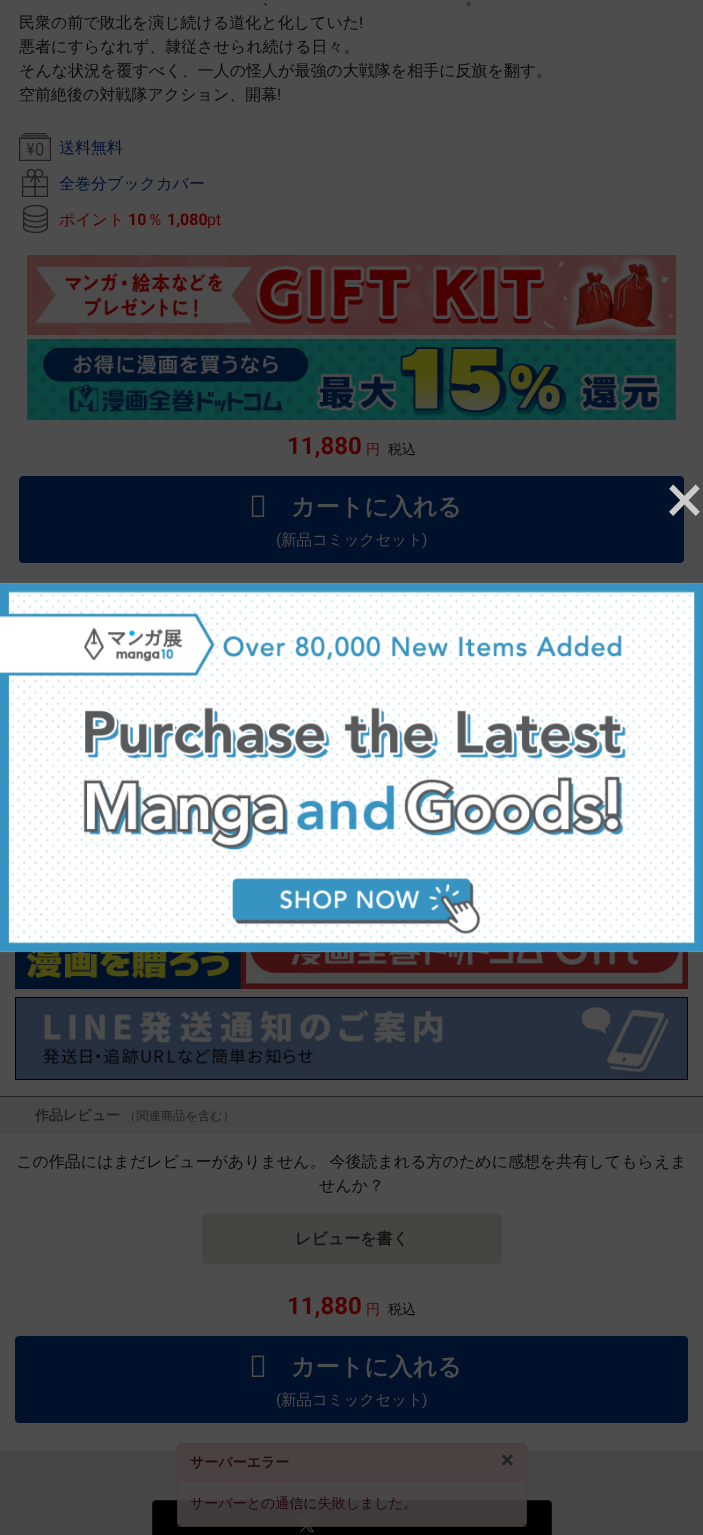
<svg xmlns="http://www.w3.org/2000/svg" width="703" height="1535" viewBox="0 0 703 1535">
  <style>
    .t1 { font: 500 16px WenQuanYi Zen Hei; fill: #0a0b0c; }
    .t2 { font: 16px Roboto; fill: #0a0b0c; }
    .t3 { font: 500 16px WenQuanYi Zen Hei; fill: #001232; }
    .t4 { font: 500 16px WenQuanYi Zen Hei; fill: #4d0000; }
    .t5 { font: bold 16px Roboto; fill: #4d0000; }
    .t6 { font: 16px Roboto; fill: #4d0000; }
    .t7 { font: bold 24px Roboto; fill: #4d0000; }
    .t8 { font: 500 14px WenQuanYi Zen Hei; fill: #4d0000; }
    .t9 { font: 500 14px WenQuanYi Zen Hei; fill: #0a0b0c; }
    .t10 { font: bold 24px WenQuanYi Zen Hei; fill: #4d4d4d; }
    .t11 { font: 15.5px Roboto; fill: #4d4d4d; }
    .t12 { font: 500 15.5px WenQuanYi Zen Hei; fill: #4d4d4d; }
    .t13 { font: bold 14px WenQuanYi Zen Hei; fill: #222; }
    .t14 { font: 500 12.25px WenQuanYi Zen Hei; fill: #222; }
    .t15 { font: bold 16px WenQuanYi Zen Hei; fill: #141414; }
    .t16 { font: 70px Roboto; fill: #ccc; }
    .t17 { font: bold 14px WenQuanYi Zen Hei; fill: #22080b; }
    .t18 { font: bold 24px Roboto; fill: #222; }
    .t19 { font: 500 14px WenQuanYi Zen Hei; fill: #22080b; }
  </style>
  <rect width="100%" height="100%" fill="#4d4d4d"/>
  <text x="262" y="4" class="t1">、</text>
  <text x="465" y="4" class="t1">。</text>
  <text x="19" y="28" class="t1">民衆の前で敗北を演じ続ける道化と化していた</text>
  <text x="359" y="28" class="t2">!</text>
  <text x="19" y="52" class="t1">悪者にすらなれず、隷従させられ続ける日々。</text>
  <text x="19" y="76" class="t1">そんな状況を覆すべく、一人の怪人が最強の大戦隊を相手に反旗を翻す。</text>
  <text x="19" y="100" class="t1">空前絶後の対戦隊アクション、開幕</text>
  <text x="277" y="100" class="t2">!</text>
  <image x="19" y="133" width="32" height="28" href="images/1.png"/>
  <text x="59" y="153" class="t3">送料無料</text>
  <image x="22" y="169" width="26" height="28" href="images/2.png"/>
  <text x="59" y="189" class="t3">全巻分ブックカバー</text>
  <image x="23" y="205" width="25" height="28" href="images/3.png"/>
  <text x="59" y="225" class="t4">ポイント</text>
  <text x="128" y="225" class="t5">10</text>
  <text x="147" y="225" class="t4">％</text>
  <text x="167" y="225" class="t5">1,080</text>
  <text x="207" y="225" class="t6">pt</text>
  <image x="27" y="255" width="649" height="80" href="images/4.png"/>
  <image x="27" y="339" width="649" height="81" href="images/5.png"/>
  <text x="287" y="454" class="t7">11,880</text>
  <text x="366" y="454" class="t8">円</text>
  <text x="388" y="454" class="t9">税込</text>
  <rect x="19.5" y="476.5" width="664" height="86" rx="3.5" fill="#00112c" stroke="#00112c"/>
  <image x="251" y="495" width="14" height="22" href="images/6.png"/>
  <text x="291" y="515" class="t10">カートに入れる</text>
  <text x="276" y="545" class="t11">(</text>
  <text x="281" y="545" class="t12">新品コミックセット</text>
  <text x="422" y="545" class="t11">)</text>
  <rect x="15" y="951" width="9" height="38" fill="#00122a"/>
  <image x="24" y="951" width="664" height="38" href="images/7.png"/>
  <image x="15" y="997" width="673" height="83" href="images/8.png"/>
  <rect x="0" y="1097" width="703" height="37" fill="#484848"/>
  <rect x="0" y="1096" width="703" height="1" fill="#222"/>
  <text x="35" y="1120" class="t13">作品レビュー</text>
  <text x="124" y="1120" class="t14">（関連商品を含む）</text>
  <text x="16" y="1167" word-spacing="-1" class="t1">この作品にはまだレビューがありません。 今後読まれる方のために感想を共有してもらえま</text>
  <text x="319" y="1191" class="t1">せんか？</text>
  <rect x="202" y="1214" width="300" height="50" rx="4" fill="#474542"/>
  <text x="295" y="1244" class="t15">レビューを書く</text>
  <text x="287" y="1314" class="t7">11,880</text>
  <text x="366" y="1314" class="t8">円</text>
  <text x="388" y="1314" class="t9">税込</text>
  <rect x="15.5" y="1336.5" width="672" height="86" rx="3.5" fill="#00112c" stroke="#00112c"/>
  <image x="251" y="1355" width="14" height="22" href="images/6.png"/>
  <text x="291" y="1375" class="t10">カートに入れる</text>
  <text x="276" y="1405" class="t11">(</text>
  <text x="281" y="1405" class="t12">新品コミックセット</text>
  <text x="422" y="1405" class="t11">)</text>
  <rect x="0" y="1452" width="703" height="83" fill="#474747"/>
  <rect x="0" y="1451" width="703" height="1" fill="#444"/>
  <rect x="152.5" y="1500.5" width="399" height="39" rx="3.5" fill="#000" stroke="#0f0f0f"/>
  <image x="300" y="1517" width="14" height="16" href="images/9.png"/>
  <text x="666" y="523" class="t16">×</text>
  <image x="0" y="582" width="703" height="371" href="images/10.png"/>
  <rect x="178" y="1444" width="348" height="82" rx="3" fill="#4c4747d9"/>
  <rect x="177.5" y="1443.5" width="349" height="83" rx="3.5" fill="none" stroke="#4a3b3dd9"/>
  <path d="M181 1444H523C524.5 1444 526 1445.5 526 1447V1480H178V1447C178 1445.5 179.5 1444 181 1444Z" fill="#4a4141d9"/>
  <rect x="178" y="1480" width="348" height="1" fill="#4a3d3e"/>
  <text x="190" y="1467" class="t17">サーバーエラー</text>
  <text x="501" y="1468" class="t18">×</text>
  <text x="190" y="1508" class="t19">サーバーとの通信に失敗しました。</text>
</svg>
